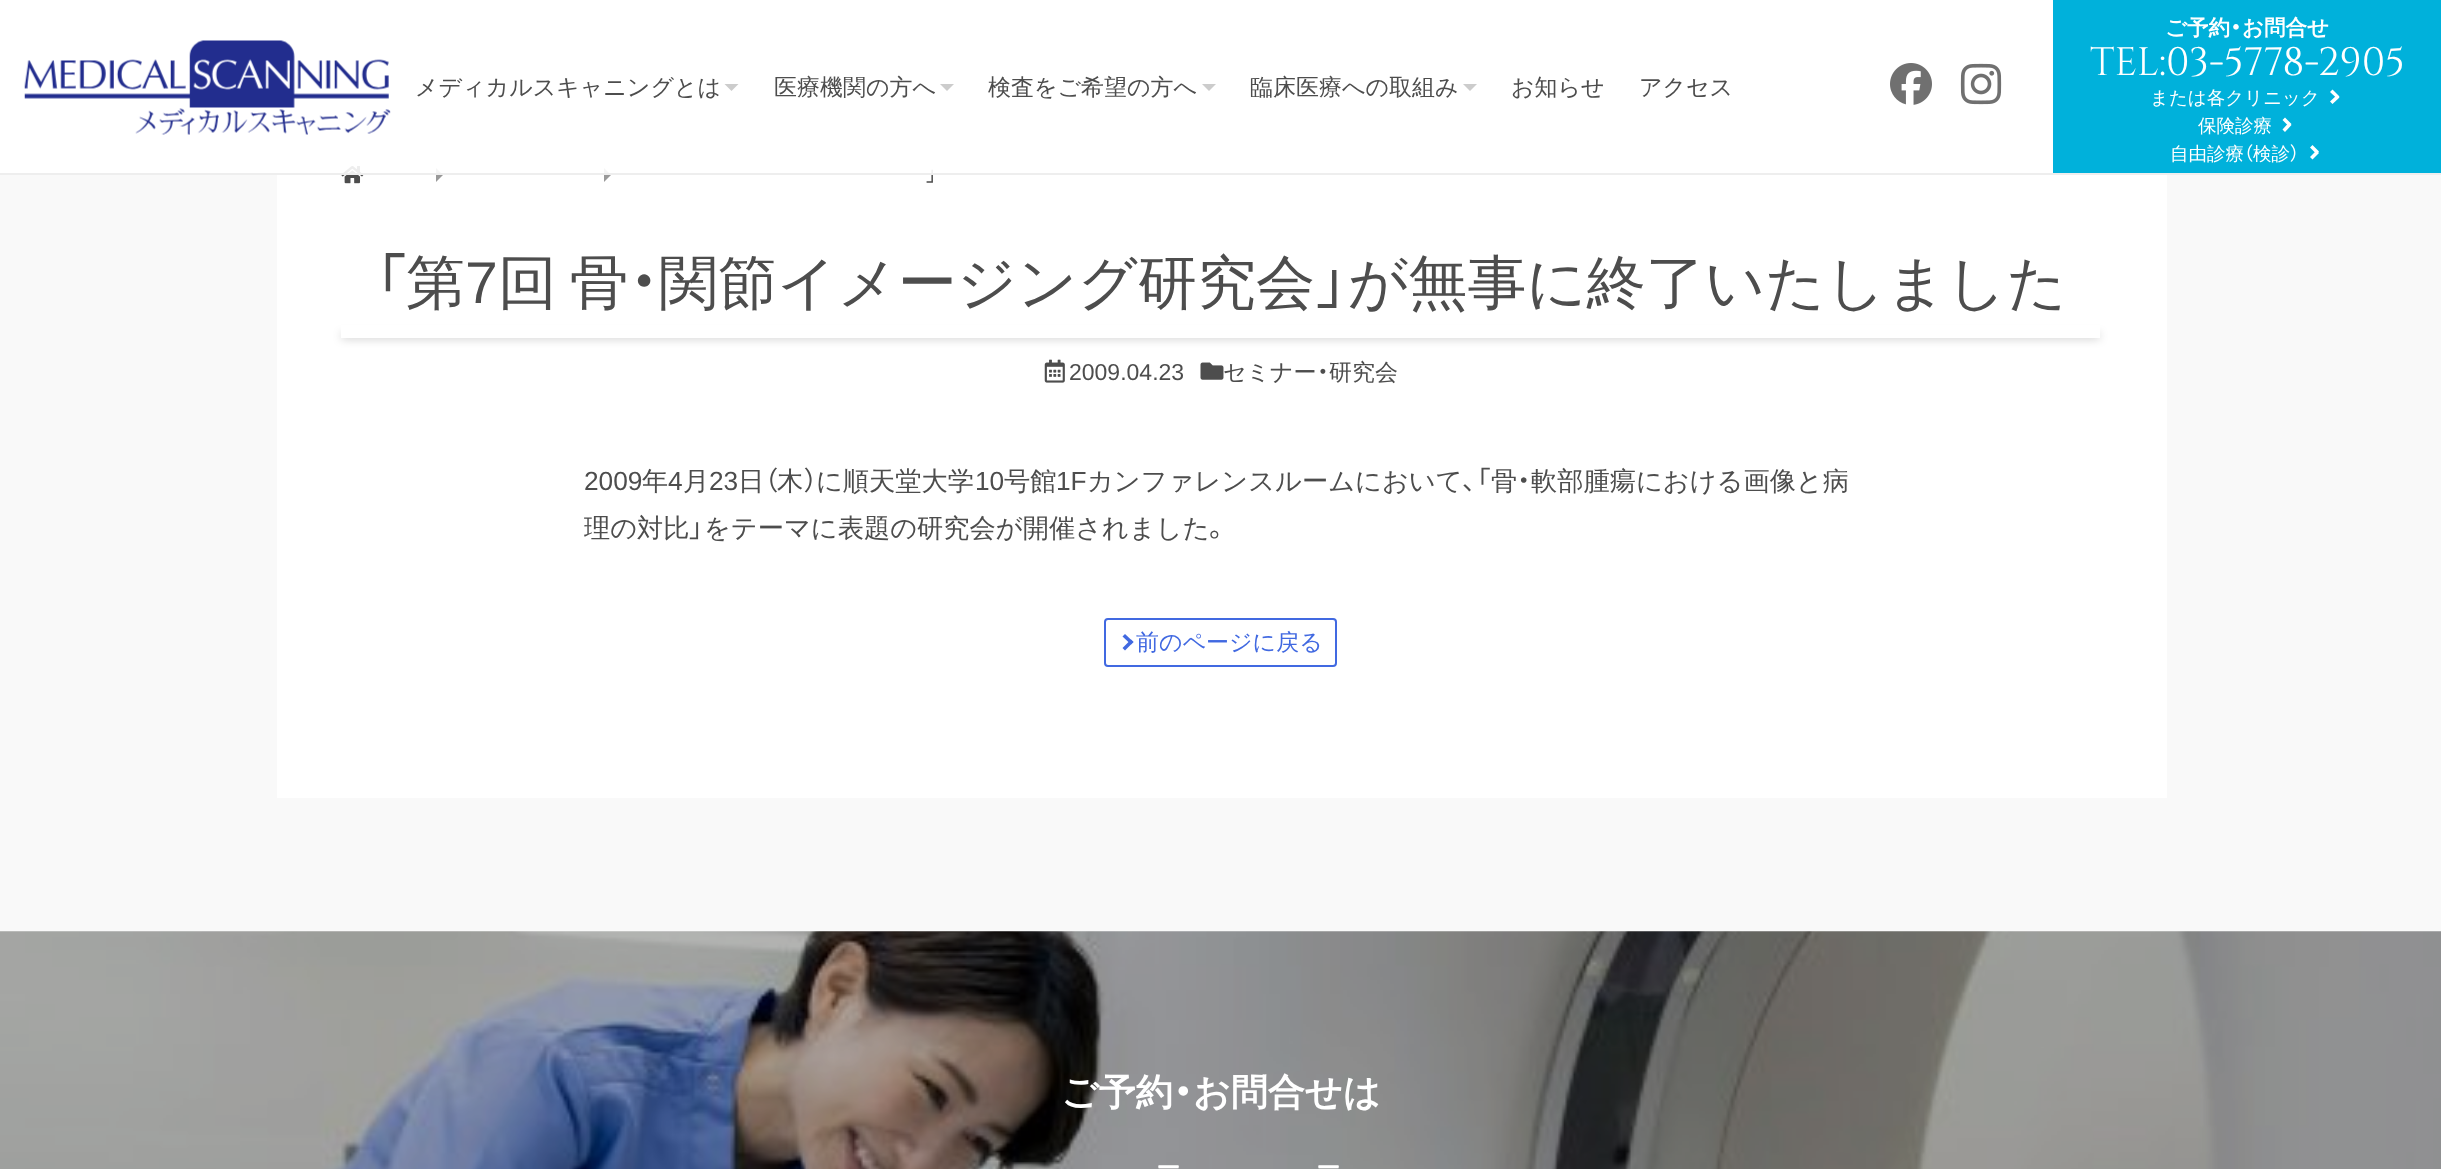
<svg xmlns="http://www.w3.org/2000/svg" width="2441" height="1169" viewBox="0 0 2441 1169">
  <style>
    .t1 { font: 20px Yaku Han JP; fill: #4d4d4d; }
    .t2 { font: 500 23px WenQuanYi Zen Hei; fill: #4d4d4d; }
    .t3 { font: bold 21.5px WenQuanYi Zen Hei; fill: #fff; }
    .t4 { font: bold 21.5px Yaku Han JP; fill: #fff; }
    .t5 { font: 39.5px Cinzel; fill: #fff; }
    .t6 { font: 500 18.5px WenQuanYi Zen Hei; fill: #fff; }
    .t7 { font: 18.5px Yaku Han JP; fill: #fff; }
    .t8 { font: 59px Yaku Han JP; fill: #4d4d4d; }
    .t9 { font: 500 59px WenQuanYi Zen Hei; fill: #4d4d4d; }
    .t10 { font: 59px Liberation Sans; fill: #4d4d4d; }
    .t11 { font: 23px Liberation Sans; fill: #4d4d4d; }
    .t12 { font: 23px Yaku Han JP; fill: #4d4d4d; }
    .t13 { font: 26.25px Liberation Sans; fill: #4d4d4d; }
    .t14 { font: 500 26.25px WenQuanYi Zen Hei; fill: #4d4d4d; }
    .t15 { font: 26.25px Yaku Han JP; fill: #4d4d4d; }
    .t16 { font: 500 23px WenQuanYi Zen Hei; fill: #4169e1; }
    .t17 { font: bold 37px WenQuanYi Zen Hei; fill: #fff; }
    .t18 { font: bold 37px Yaku Han JP; fill: #fff; }
    .t19 { font: 66px Cinzel; fill: #fff; }
  </style>
  <rect width="100%" height="100%" fill="#f9f9f9"/>
  <rect x="277" y="123" width="1890" height="675" fill="#fff"/>
  <image x="341" y="166" width="23" height="18" href="images/4.png"/>
  <path d="M436 182V168L443 175Z" fill="#999"/>
  <path d="M604 182V168L611 175Z" fill="#999"/>
  <text x="926" y="181" class="t1">」</text>
  <rect x="0" y="0" width="2053" height="173" fill="#ffffffe6"/>
  <rect x="0" y="173" width="2441" height="2" fill="#eee"/>
  <image x="24" y="40" width="367" height="95" href="images/1.png"/>
  <text x="415" y="95" class="t2">メディカルスキャニングとは</text>
  <path d="M724.5 84H738.5L731.5 91Z" fill="#ccc"/>
  <text x="774" y="95" class="t2">医療機関の方へ</text>
  <path d="M940 84H954L947 91Z" fill="#ccc"/>
  <text x="988" y="95" class="t2">検査をご希望の方へ</text>
  <path d="M1202 84H1216L1209 91Z" fill="#ccc"/>
  <text x="1250" y="95" class="t2">臨床医療への取組み</text>
  <path d="M1463 84H1477L1470 91Z" fill="#ccc"/>
  <text x="1511" y="95" class="t2">お知らせ</text>
  <text x="1639" y="95" class="t2">アクセス</text>
  <image x="1890" y="63" width="42" height="42" href="images/2.png"/>
  <image x="1960" y="63" width="42" height="42" href="images/3.png"/>
  <rect x="2053" y="0" width="388" height="173" fill="#00b1db"/>
  <text x="2165" y="35" class="t3">ご予約</text>
  <text x="2230" y="35" class="t4">・</text>
  <text x="2242" y="35" class="t3">お問合せ</text>
  <text x="2090" y="75" class="t5">TEL:03-5778-2905</text>
  <text x="2150" y="104" class="t6">または各クリニック</text>
  <path d="M2332.5 89.5L2339.5 96.5L2337 98.5L2330 92Z" fill="#fff"/>
  <path d="M2337 95L2339.5 97.5L2332.5 104L2330 101.5ZM2285 117.5L2291.5 124L2289 126.5L2282.5 120Z" fill="#fff"/>
  <text x="2198" y="132" class="t6">保険診療</text>
  <path d="M2289 122.5L2291.5 125L2285 132L2282.5 129.5ZM2312.5 145L2319 151.5L2316.5 154L2310 147.5Z" fill="#fff"/>
  <text x="2170" y="160" class="t6">自由診療</text>
  <text x="2244" y="160" class="t7">（</text>
  <text x="2253" y="160" class="t6">検診</text>
  <text x="2290" y="160" class="t7">）</text>
  <path d="M2316.5 150.5L2319 153L2312.5 159.5L2310 157Z" fill="#fff"/>
  <text x="374" y="303" class="t8">「</text>
  <text x="406" y="303" class="t9">第</text>
  <text x="465" y="303" class="t10">7</text>
  <text x="498" y="303" word-spacing="-5" class="t9">回 骨</text>
  <text x="629" y="303" class="t8">・</text>
  <text x="659" y="303" class="t9">関節イメージング研究会</text>
  <text x="1316" y="303" class="t8">」</text>
  <text x="1348" y="303" class="t9">が無事に終了いたしました</text>
  <rect x="341" y="334" width="1759" height="4" rx="2" fill="#0000004d" filter="blur(5px)"/>
  <rect x="341" y="325" width="1759" height="13" fill="#fff"/>
  <image x="1044" y="359" width="21" height="24" href="images/5.png"/>
  <text x="1069" y="380" class="t11">2009.04.23</text>
  <image x="1200" y="362" width="24" height="18" href="images/6.png"/>
  <text x="1223" y="380" class="t2">セミナー</text>
  <text x="1317" y="380" class="t12">・</text>
  <text x="1329" y="380" class="t2">研究会</text>
  <text x="584" y="490" class="t13">2009</text>
  <text x="642" y="490" class="t14">年</text>
  <text x="668" y="490" class="t13">4</text>
  <text x="683" y="490" class="t14">月</text>
  <text x="709" y="490" class="t13">23</text>
  <text x="738" y="490" class="t14">日</text>
  <text x="765" y="490" class="t15">（</text>
  <text x="777" y="490" class="t14">木</text>
  <text x="804" y="490" class="t15">）</text>
  <text x="816" y="490" class="t14">に順天堂大学</text>
  <text x="975" y="490" class="t13">10</text>
  <text x="1004" y="490" class="t14">号館</text>
  <text x="1056" y="490" class="t13">1F</text>
  <text x="1087" y="490" class="t14">カンファレンスルームにおいて</text>
  <text x="1462" y="490" class="t15">、「</text>
  <text x="1491" y="490" class="t14">骨</text>
  <text x="1517" y="490" class="t15">・</text>
  <text x="1531" y="490" class="t14">軟部腫瘍における画像と病</text>
  <text x="584" y="537" class="t14">理の対比</text>
  <text x="689" y="537" class="t15">」</text>
  <text x="704" y="537" class="t14">をテーマに表題の研究会が開催されました</text>
  <text x="1209" y="537" class="t15">。</text>
  <rect x="1105" y="619" width="231" height="47" rx="3" fill="none" stroke="#4169e1" stroke-width="2"/>
  <path d="M1125 634L1133.5 642L1131 644.5L1122.5 636.5Z" fill="#4169e1"/>
  <path d="M1131 639.5L1133.5 642L1125 650.5L1122.5 648Z" fill="#4169e1"/>
  <text x="1136" y="650" class="t16">前のページに戻る</text>
  <image x="0" y="931" width="2441" height="238" href="images/7.png"/>
  <text x="1061" y="1105" class="t17">ご予約</text>
  <text x="1173" y="1105" class="t18">・</text>
  <text x="1193" y="1105" class="t17">お問合せは</text>
  <text x="1156" y="1186" class="t19">-</text>
  <text x="1316" y="1186" class="t19">-</text>
</svg>
